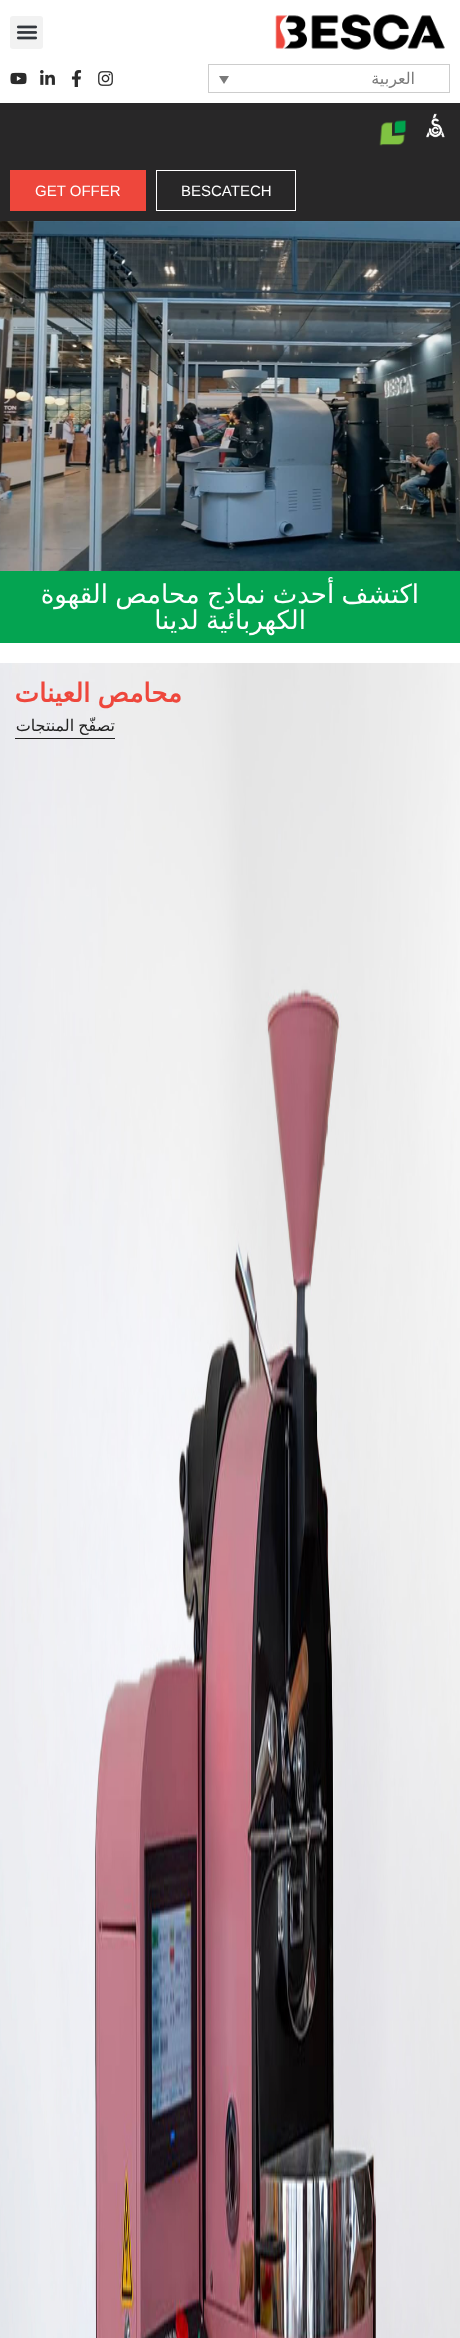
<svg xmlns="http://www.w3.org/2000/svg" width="460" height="2338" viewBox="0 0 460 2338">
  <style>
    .t1 { font: 16px DejaVu Sans; direction: rtl; fill: #7a7a7a; }
    .t2 { font: 15px Liberation Sans; fill: #fff; }
    .t3 { font: 26px DejaVu Sans; direction: rtl; fill: #fff; }
    .t4 { font: bold 26px DejaVu Sans; direction: rtl; fill: #ee473c; }
    .t5 { font: 16px DejaVu Sans; direction: rtl; fill: #222; }
  </style>
  <rect width="100%" height="100%" fill="#fff"/>
  <image x="275" y="14" width="170" height="36" href="images/1.png"/>
  <rect x="10" y="16" width="33" height="33" rx="3" fill="#f2f2f2"/>
  <image x="16" y="25" width="22" height="15" href="images/2.png"/>
  <rect x="208.5" y="64.5" width="241" height="28" fill="none" stroke="#cdcdcd"/>
  <text x="415" y="84" class="t1">العربية</text>
  <path d="M219 76H229L224 84Z" fill="#7a7a7a"/>
  <image x="98" y="71" width="15" height="15" href="images/3.png"/>
  <image x="71" y="70" width="11" height="17" href="images/4.png"/>
  <image x="40" y="70" width="15" height="15" href="images/5.png"/>
  <image x="10" y="72" width="17" height="13" href="images/6.png"/>
  <rect x="0" y="103" width="460" height="118" fill="#282728"/>
  <image x="426" y="113" width="19" height="25" href="images/7.png"/>
  <image x="379" y="120" width="28" height="26" href="images/8.png"/>
  <rect x="156.5" y="170.5" width="139" height="40" fill="none" stroke="#fff"/>
  <text x="181" y="196" class="t2">BESCATECH</text>
  <rect x="10" y="170" width="136" height="41" fill="#ee473c"/>
  <text x="35" y="196" class="t2">GET OFFER</text>
  <image x="0" y="221" width="460" height="350" href="images/9.png"/>
  <rect x="0" y="571" width="460" height="72" fill="#04a451"/>
  <text x="419" y="603" word-spacing="-1" class="t3">اكتشف أحدث نماذج محامص القهوة</text>
  <text x="306" y="629" word-spacing="-1" class="t3">الكهربائية لدينا</text>
  <image x="0" y="663" width="460" height="1675" href="images/10.png"/>
  <text x="182" y="702" word-spacing="-1" class="t4">محامص العينات</text>
  <rect x="15" y="738" width="100" height="1" fill="#222"/>
  <text x="115" y="731" word-spacing="-1" class="t5">تصفّح المنتجات</text>
</svg>
